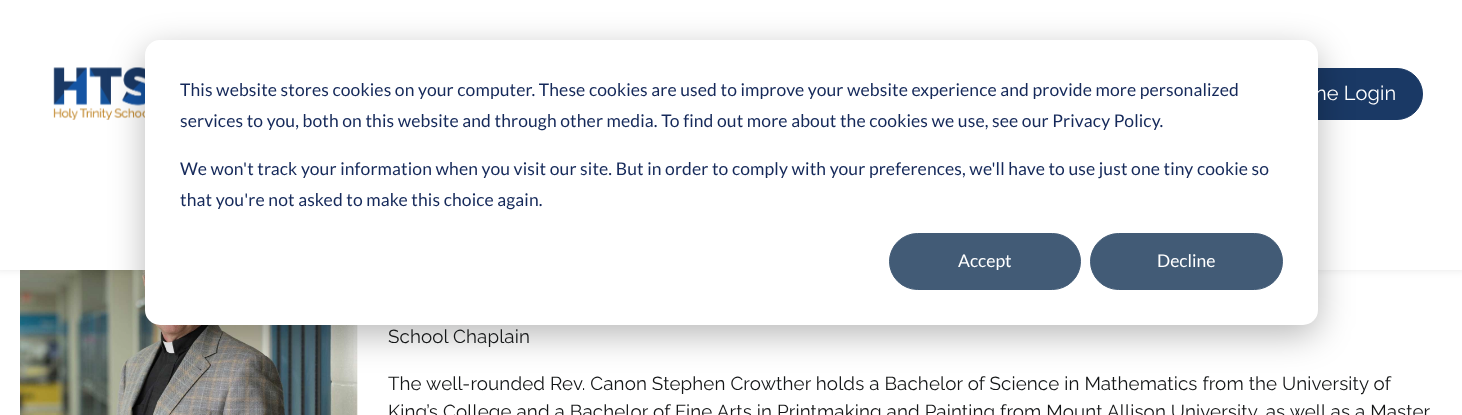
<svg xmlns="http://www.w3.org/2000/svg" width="1462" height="415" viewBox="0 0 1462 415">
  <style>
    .t1 { font: 17.5px Lato; letter-spacing: 0.12px; fill: #15295a; }
    .t2 { font: 17.5px Lato; fill: #fff; }
    .t3 { font: 20px Raleway; letter-spacing: 0.12px; fill: #fff; }
    .t4 { font: 18.75px Raleway; letter-spacing: 0.12px; fill: #141617; }
  </style>
  <rect width="100%" height="100%" fill="#fff"/>
  <image x="20" y="270" width="338" height="145" href="images/2.png"/>
  <rect x="-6" y="-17" width="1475" height="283" fill="#00000033" filter="blur(6px)"/>
  <rect x="0" y="0" width="1462" height="270" fill="#fff"/>
  <image x="53" y="67" width="92" height="53" href="images/1.png"/>
  <rect x="1274.5" y="68.5" width="148" height="51" rx="25.5" fill="#1a3965" stroke="#1a3965"/>
  <rect x="145" y="50" width="1173" height="285" rx="15" fill="#00000047" filter="blur(17.5px)"/>
  <rect x="145" y="40" width="1173" height="285" rx="15" fill="#fff"/>
  <text x="180" y="96" class="t1">This website stores cookies on your computer. These cookies are used to improve your website experience and provide more personalized</text>
  <text x="180" y="127" class="t1">services to you, both on this website and through other media. To find out more about the cookies we use, see our Privacy Policy.</text>
  <text x="180" y="175" class="t1">We won't track your information when you visit our site. But in order to comply with your preferences, we'll have to use just one tiny cookie so</text>
  <text x="180" y="206" class="t1">that you're not asked to make this choice again.</text>
  <rect x="889.5" y="233.5" width="191" height="56" rx="28" fill="#425b76" stroke="#425b76"/>
  <text x="958" y="267" class="t2">Accept</text>
  <rect x="1090.5" y="233.5" width="192" height="56" rx="28" fill="#425b76" stroke="#425b76"/>
  <text x="1157" y="267" class="t2">Decline</text>
  <text x="1315" y="100" class="t3">ne Login</text>
  <text x="388" y="343" class="t4">School Chaplain</text>
  <text x="388" y="390" class="t4">The well-rounded Rev. Canon Stephen Crowther holds a Bachelor of Science in Mathematics from the University of</text>
  <text x="388" y="418" class="t4">King’s College and a Bachelor of Fine Arts in Printmaking and Painting from Mount Allison University, as well as a Master</text>
</svg>
